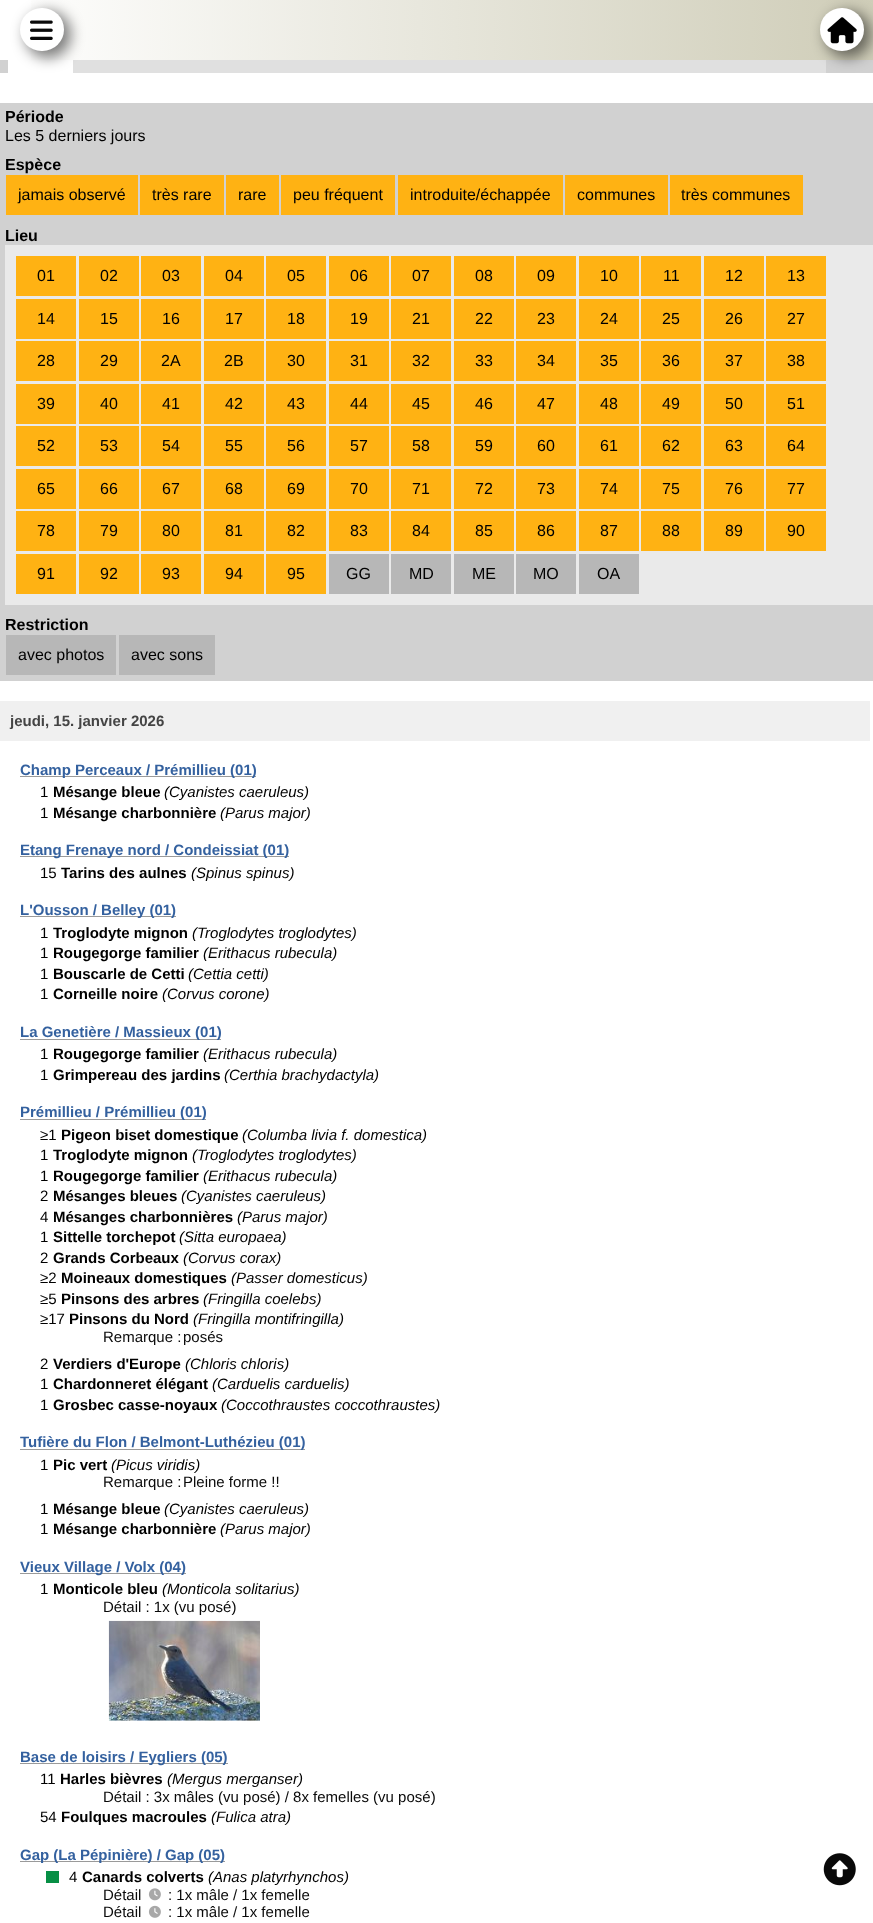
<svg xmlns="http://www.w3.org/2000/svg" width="873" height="1923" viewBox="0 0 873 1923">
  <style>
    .t1 { font: bold 16px Liberation Sans; fill: #000; }
    .t2 { font: 16px Liberation Sans; fill: #000; }
    .t3 { font: bold 15px Liberation Sans; fill: #444; }
    .t4 { font: bold 15px Liberation Sans; fill: #34619f; }
    .t5 { font: 15px Liberation Sans; fill: #000; }
    .t6 { font: bold 15px Liberation Sans; fill: #000; }
    .t7 { font: italic 15px Liberation Sans; fill: #000; }
    .t8 { font: 15px Liberation Sans; fill: #090909; }
  </style>
  <defs>
    <linearGradient id="g1" gradientUnits="userSpaceOnUse" x1="0" y1="30" x2="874" y2="30"><stop offset="0" stop-color="#fff"/><stop offset="1" stop-color="#cfcdb8"/></linearGradient>
  </defs>
  <rect width="100%" height="100%" fill="#fff"/>
  <rect x="31" y="0" width="842" height="60" fill="url(#g1)"/>
  <rect x="0" y="60" width="873" height="13" fill="#d1d1d1"/>
  <rect x="73" y="60" width="753" height="13" fill="#e0e0e0"/>
  <rect x="8" y="60" width="65" height="13" fill="#fff"/>
  <rect x="25" y="11" width="46" height="47" rx="23" fill="#00000080" filter="blur(7px)"/>
  <rect x="20" y="8" width="44" height="43" rx="21.5" fill="#fff"/>
  <image x="30" y="20" width="23" height="20" href="images/1.png"/>
  <rect x="825" y="11" width="46" height="47" rx="23" fill="#00000080" filter="blur(7px)"/>
  <rect x="820" y="8" width="44" height="43" rx="21.5" fill="#fff"/>
  <image x="827" y="17" width="30" height="27" href="images/2.png"/>
  <rect x="0" y="103" width="873" height="578" fill="#d1d1d1"/>
  <text x="5" y="122" class="t1">Période</text>
  <text x="5" y="141" class="t2">Les 5 derniers jours</text>
  <text x="5" y="170" class="t1">Espèce</text>
  <rect x="6" y="175" width="132" height="40" fill="#ffb213"/>
  <text x="18" y="200" class="t2">jamais observé</text>
  <rect x="140" y="175" width="84" height="40" fill="#ffb213"/>
  <text x="152" y="200" class="t2">très rare</text>
  <rect x="226" y="175" width="53" height="40" fill="#ffb213"/>
  <text x="238" y="200" class="t2">rare</text>
  <rect x="281" y="175" width="114" height="40" fill="#ffb213"/>
  <text x="293" y="200" class="t2">peu fréquent</text>
  <rect x="398" y="175" width="165" height="40" fill="#ffb213"/>
  <text x="410" y="200" class="t2">introduite/échappée</text>
  <rect x="565" y="175" width="103" height="40" fill="#ffb213"/>
  <text x="577" y="200" class="t2">communes</text>
  <rect x="670" y="175" width="133" height="40" fill="#ffb213"/>
  <text x="681" y="200" class="t2">très communes</text>
  <text x="5" y="241" class="t1">Lieu</text>
  <rect x="5" y="245" width="868" height="360" fill="#eaeaea"/>
  <rect x="16" y="256" width="60" height="40" fill="#ffb213"/>
  <text x="37" y="281" class="t2">01</text>
  <rect x="79" y="256" width="60" height="40" fill="#ffb213"/>
  <text x="100" y="281" class="t2">02</text>
  <rect x="141" y="256" width="60" height="40" fill="#ffb213"/>
  <text x="162" y="281" class="t2">03</text>
  <rect x="204" y="256" width="60" height="40" fill="#ffb213"/>
  <text x="225" y="281" class="t2">04</text>
  <rect x="266" y="256" width="60" height="40" fill="#ffb213"/>
  <text x="287" y="281" class="t2">05</text>
  <rect x="329" y="256" width="60" height="40" fill="#ffb213"/>
  <text x="350" y="281" class="t2">06</text>
  <rect x="391" y="256" width="60" height="40" fill="#ffb213"/>
  <text x="412" y="281" class="t2">07</text>
  <rect x="454" y="256" width="60" height="40" fill="#ffb213"/>
  <text x="475" y="281" class="t2">08</text>
  <rect x="516" y="256" width="60" height="40" fill="#ffb213"/>
  <text x="537" y="281" class="t2">09</text>
  <rect x="579" y="256" width="60" height="40" fill="#ffb213"/>
  <text x="600" y="281" class="t2">10</text>
  <rect x="641" y="256" width="60" height="40" fill="#ffb213"/>
  <text x="663" y="281" class="t2">11</text>
  <rect x="704" y="256" width="60" height="40" fill="#ffb213"/>
  <text x="725" y="281" class="t2">12</text>
  <rect x="766" y="256" width="60" height="40" fill="#ffb213"/>
  <text x="787" y="281" class="t2">13</text>
  <rect x="16" y="299" width="60" height="40" fill="#ffb213"/>
  <text x="37" y="324" class="t2">14</text>
  <rect x="79" y="299" width="60" height="40" fill="#ffb213"/>
  <text x="100" y="324" class="t2">15</text>
  <rect x="141" y="299" width="60" height="40" fill="#ffb213"/>
  <text x="162" y="324" class="t2">16</text>
  <rect x="204" y="299" width="60" height="40" fill="#ffb213"/>
  <text x="225" y="324" class="t2">17</text>
  <rect x="266" y="299" width="60" height="40" fill="#ffb213"/>
  <text x="287" y="324" class="t2">18</text>
  <rect x="329" y="299" width="60" height="40" fill="#ffb213"/>
  <text x="350" y="324" class="t2">19</text>
  <rect x="391" y="299" width="60" height="40" fill="#ffb213"/>
  <text x="412" y="324" class="t2">21</text>
  <rect x="454" y="299" width="60" height="40" fill="#ffb213"/>
  <text x="475" y="324" class="t2">22</text>
  <rect x="516" y="299" width="60" height="40" fill="#ffb213"/>
  <text x="537" y="324" class="t2">23</text>
  <rect x="579" y="299" width="60" height="40" fill="#ffb213"/>
  <text x="600" y="324" class="t2">24</text>
  <rect x="641" y="299" width="60" height="40" fill="#ffb213"/>
  <text x="662" y="324" class="t2">25</text>
  <rect x="704" y="299" width="60" height="40" fill="#ffb213"/>
  <text x="725" y="324" class="t2">26</text>
  <rect x="766" y="299" width="60" height="40" fill="#ffb213"/>
  <text x="787" y="324" class="t2">27</text>
  <rect x="16" y="341" width="60" height="40" fill="#ffb213"/>
  <text x="37" y="366" class="t2">28</text>
  <rect x="79" y="341" width="60" height="40" fill="#ffb213"/>
  <text x="100" y="366" class="t2">29</text>
  <rect x="141" y="341" width="60" height="40" fill="#ffb213"/>
  <text x="161" y="366" class="t2">2A</text>
  <rect x="204" y="341" width="60" height="40" fill="#ffb213"/>
  <text x="224" y="366" class="t2">2B</text>
  <rect x="266" y="341" width="60" height="40" fill="#ffb213"/>
  <text x="287" y="366" class="t2">30</text>
  <rect x="329" y="341" width="60" height="40" fill="#ffb213"/>
  <text x="350" y="366" class="t2">31</text>
  <rect x="391" y="341" width="60" height="40" fill="#ffb213"/>
  <text x="412" y="366" class="t2">32</text>
  <rect x="454" y="341" width="60" height="40" fill="#ffb213"/>
  <text x="475" y="366" class="t2">33</text>
  <rect x="516" y="341" width="60" height="40" fill="#ffb213"/>
  <text x="537" y="366" class="t2">34</text>
  <rect x="579" y="341" width="60" height="40" fill="#ffb213"/>
  <text x="600" y="366" class="t2">35</text>
  <rect x="641" y="341" width="60" height="40" fill="#ffb213"/>
  <text x="662" y="366" class="t2">36</text>
  <rect x="704" y="341" width="60" height="40" fill="#ffb213"/>
  <text x="725" y="366" class="t2">37</text>
  <rect x="766" y="341" width="60" height="40" fill="#ffb213"/>
  <text x="787" y="366" class="t2">38</text>
  <rect x="16" y="384" width="60" height="40" fill="#ffb213"/>
  <text x="37" y="409" class="t2">39</text>
  <rect x="79" y="384" width="60" height="40" fill="#ffb213"/>
  <text x="100" y="409" class="t2">40</text>
  <rect x="141" y="384" width="60" height="40" fill="#ffb213"/>
  <text x="162" y="409" class="t2">41</text>
  <rect x="204" y="384" width="60" height="40" fill="#ffb213"/>
  <text x="225" y="409" class="t2">42</text>
  <rect x="266" y="384" width="60" height="40" fill="#ffb213"/>
  <text x="287" y="409" class="t2">43</text>
  <rect x="329" y="384" width="60" height="40" fill="#ffb213"/>
  <text x="350" y="409" class="t2">44</text>
  <rect x="391" y="384" width="60" height="40" fill="#ffb213"/>
  <text x="412" y="409" class="t2">45</text>
  <rect x="454" y="384" width="60" height="40" fill="#ffb213"/>
  <text x="475" y="409" class="t2">46</text>
  <rect x="516" y="384" width="60" height="40" fill="#ffb213"/>
  <text x="537" y="409" class="t2">47</text>
  <rect x="579" y="384" width="60" height="40" fill="#ffb213"/>
  <text x="600" y="409" class="t2">48</text>
  <rect x="641" y="384" width="60" height="40" fill="#ffb213"/>
  <text x="662" y="409" class="t2">49</text>
  <rect x="704" y="384" width="60" height="40" fill="#ffb213"/>
  <text x="725" y="409" class="t2">50</text>
  <rect x="766" y="384" width="60" height="40" fill="#ffb213"/>
  <text x="787" y="409" class="t2">51</text>
  <rect x="16" y="426" width="60" height="40" fill="#ffb213"/>
  <text x="37" y="451" class="t2">52</text>
  <rect x="79" y="426" width="60" height="40" fill="#ffb213"/>
  <text x="100" y="451" class="t2">53</text>
  <rect x="141" y="426" width="60" height="40" fill="#ffb213"/>
  <text x="162" y="451" class="t2">54</text>
  <rect x="204" y="426" width="60" height="40" fill="#ffb213"/>
  <text x="225" y="451" class="t2">55</text>
  <rect x="266" y="426" width="60" height="40" fill="#ffb213"/>
  <text x="287" y="451" class="t2">56</text>
  <rect x="329" y="426" width="60" height="40" fill="#ffb213"/>
  <text x="350" y="451" class="t2">57</text>
  <rect x="391" y="426" width="60" height="40" fill="#ffb213"/>
  <text x="412" y="451" class="t2">58</text>
  <rect x="454" y="426" width="60" height="40" fill="#ffb213"/>
  <text x="475" y="451" class="t2">59</text>
  <rect x="516" y="426" width="60" height="40" fill="#ffb213"/>
  <text x="537" y="451" class="t2">60</text>
  <rect x="579" y="426" width="60" height="40" fill="#ffb213"/>
  <text x="600" y="451" class="t2">61</text>
  <rect x="641" y="426" width="60" height="40" fill="#ffb213"/>
  <text x="662" y="451" class="t2">62</text>
  <rect x="704" y="426" width="60" height="40" fill="#ffb213"/>
  <text x="725" y="451" class="t2">63</text>
  <rect x="766" y="426" width="60" height="40" fill="#ffb213"/>
  <text x="787" y="451" class="t2">64</text>
  <rect x="16" y="469" width="60" height="40" fill="#ffb213"/>
  <text x="37" y="494" class="t2">65</text>
  <rect x="79" y="469" width="60" height="40" fill="#ffb213"/>
  <text x="100" y="494" class="t2">66</text>
  <rect x="141" y="469" width="60" height="40" fill="#ffb213"/>
  <text x="162" y="494" class="t2">67</text>
  <rect x="204" y="469" width="60" height="40" fill="#ffb213"/>
  <text x="225" y="494" class="t2">68</text>
  <rect x="266" y="469" width="60" height="40" fill="#ffb213"/>
  <text x="287" y="494" class="t2">69</text>
  <rect x="329" y="469" width="60" height="40" fill="#ffb213"/>
  <text x="350" y="494" class="t2">70</text>
  <rect x="391" y="469" width="60" height="40" fill="#ffb213"/>
  <text x="412" y="494" class="t2">71</text>
  <rect x="454" y="469" width="60" height="40" fill="#ffb213"/>
  <text x="475" y="494" class="t2">72</text>
  <rect x="516" y="469" width="60" height="40" fill="#ffb213"/>
  <text x="537" y="494" class="t2">73</text>
  <rect x="579" y="469" width="60" height="40" fill="#ffb213"/>
  <text x="600" y="494" class="t2">74</text>
  <rect x="641" y="469" width="60" height="40" fill="#ffb213"/>
  <text x="662" y="494" class="t2">75</text>
  <rect x="704" y="469" width="60" height="40" fill="#ffb213"/>
  <text x="725" y="494" class="t2">76</text>
  <rect x="766" y="469" width="60" height="40" fill="#ffb213"/>
  <text x="787" y="494" class="t2">77</text>
  <rect x="16" y="511" width="60" height="40" fill="#ffb213"/>
  <text x="37" y="536" class="t2">78</text>
  <rect x="79" y="511" width="60" height="40" fill="#ffb213"/>
  <text x="100" y="536" class="t2">79</text>
  <rect x="141" y="511" width="60" height="40" fill="#ffb213"/>
  <text x="162" y="536" class="t2">80</text>
  <rect x="204" y="511" width="60" height="40" fill="#ffb213"/>
  <text x="225" y="536" class="t2">81</text>
  <rect x="266" y="511" width="60" height="40" fill="#ffb213"/>
  <text x="287" y="536" class="t2">82</text>
  <rect x="329" y="511" width="60" height="40" fill="#ffb213"/>
  <text x="350" y="536" class="t2">83</text>
  <rect x="391" y="511" width="60" height="40" fill="#ffb213"/>
  <text x="412" y="536" class="t2">84</text>
  <rect x="454" y="511" width="60" height="40" fill="#ffb213"/>
  <text x="475" y="536" class="t2">85</text>
  <rect x="516" y="511" width="60" height="40" fill="#ffb213"/>
  <text x="537" y="536" class="t2">86</text>
  <rect x="579" y="511" width="60" height="40" fill="#ffb213"/>
  <text x="600" y="536" class="t2">87</text>
  <rect x="641" y="511" width="60" height="40" fill="#ffb213"/>
  <text x="662" y="536" class="t2">88</text>
  <rect x="704" y="511" width="60" height="40" fill="#ffb213"/>
  <text x="725" y="536" class="t2">89</text>
  <rect x="766" y="511" width="60" height="40" fill="#ffb213"/>
  <text x="787" y="536" class="t2">90</text>
  <rect x="16" y="554" width="60" height="40" fill="#ffb213"/>
  <text x="37" y="579" class="t2">91</text>
  <rect x="79" y="554" width="60" height="40" fill="#ffb213"/>
  <text x="100" y="579" class="t2">92</text>
  <rect x="141" y="554" width="60" height="40" fill="#ffb213"/>
  <text x="162" y="579" class="t2">93</text>
  <rect x="204" y="554" width="60" height="40" fill="#ffb213"/>
  <text x="225" y="579" class="t2">94</text>
  <rect x="266" y="554" width="60" height="40" fill="#ffb213"/>
  <text x="287" y="579" class="t2">95</text>
  <rect x="329" y="554" width="60" height="40" fill="#b7b7b7"/>
  <text x="346" y="579" class="t2">GG</text>
  <rect x="391" y="554" width="60" height="40" fill="#b7b7b7"/>
  <text x="409" y="579" class="t2">MD</text>
  <rect x="454" y="554" width="60" height="40" fill="#b7b7b7"/>
  <text x="472" y="579" class="t2">ME</text>
  <rect x="516" y="554" width="60" height="40" fill="#b7b7b7"/>
  <text x="533" y="579" class="t2">MO</text>
  <rect x="579" y="554" width="60" height="40" fill="#b7b7b7"/>
  <text x="597" y="579" class="t2">OA</text>
  <text x="5" y="630" class="t1">Restriction</text>
  <rect x="6" y="635" width="110" height="40" fill="#b7b7b7"/>
  <text x="18" y="660" class="t2">avec photos</text>
  <rect x="119" y="635" width="96" height="40" fill="#b7b7b7"/>
  <text x="131" y="660" class="t2">avec sons</text>
  <rect x="0" y="701" width="870" height="40" fill="#f0f0f0"/>
  <text x="10" y="726" class="t3">jeudi, 15. janvier 2026</text>
  <rect x="20" y="776" width="236" height="1" fill="#9a9a9a"/>
  <text x="20" y="775" class="t4">Champ Perceaux / Prémillieu (01)</text>
  <text x="40" y="797" class="t5">1</text>
  <text x="53" y="797" class="t6">Mésange bleue</text>
  <text x="164" y="797" class="t7">(Cyanistes caeruleus)</text>
  <text x="40" y="818" class="t5">1</text>
  <text x="53" y="818" class="t6">Mésange charbonnière</text>
  <text x="220" y="818" class="t7">(Parus major)</text>
  <rect x="20" y="856" width="269" height="1" fill="#9a9a9a"/>
  <text x="20" y="855" class="t4">Etang Frenaye nord / Condeissiat (01)</text>
  <text x="40" y="878" class="t5">15</text>
  <text x="61" y="878" class="t6">Tarins des aulnes</text>
  <text x="191" y="878" class="t7">(Spinus spinus)</text>
  <rect x="20" y="916" width="156" height="1" fill="#9a9a9a"/>
  <text x="20" y="915" class="t4">L'Ousson / Belley (01)</text>
  <text x="40" y="938" class="t5">1</text>
  <text x="53" y="938" class="t6">Troglodyte mignon</text>
  <text x="192" y="938" class="t7">(Troglodytes troglodytes)</text>
  <text x="40" y="958" class="t5">1</text>
  <text x="53" y="958" class="t6">Rougegorge familier</text>
  <text x="203" y="958" class="t7">(Erithacus rubecula)</text>
  <text x="40" y="979" class="t5">1</text>
  <text x="53" y="979" class="t6">Bouscarle de Cetti</text>
  <text x="188" y="979" class="t7">(Cettia cetti)</text>
  <text x="40" y="999" class="t5">1</text>
  <text x="53" y="999" class="t6">Corneille noire</text>
  <text x="162" y="999" class="t7">(Corvus corone)</text>
  <rect x="20" y="1039" width="201" height="1" fill="#9a9a9a"/>
  <text x="20" y="1037" class="t4">La Genetière / Massieux (01)</text>
  <text x="40" y="1059" class="t5">1</text>
  <text x="53" y="1059" class="t6">Rougegorge familier</text>
  <text x="203" y="1059" class="t7">(Erithacus rubecula)</text>
  <text x="40" y="1080" class="t5">1</text>
  <text x="53" y="1080" class="t6">Grimpereau des jardins</text>
  <text x="224" y="1080" class="t7">(Certhia brachydactyla)</text>
  <rect x="20" y="1119" width="186" height="1" fill="#9a9a9a"/>
  <text x="20" y="1117" class="t4">Prémillieu / Prémillieu (01)</text>
  <text x="40" y="1140" class="t5">≥1</text>
  <text x="61" y="1140" class="t6">Pigeon biset domestique</text>
  <text x="242" y="1140" class="t7">(Columba livia f. domestica)</text>
  <text x="40" y="1160" class="t5">1</text>
  <text x="53" y="1160" class="t6">Troglodyte mignon</text>
  <text x="192" y="1160" class="t7">(Troglodytes troglodytes)</text>
  <text x="40" y="1181" class="t5">1</text>
  <text x="53" y="1181" class="t6">Rougegorge familier</text>
  <text x="203" y="1181" class="t7">(Erithacus rubecula)</text>
  <text x="40" y="1201" class="t5">2</text>
  <text x="53" y="1201" class="t6">Mésanges bleues</text>
  <text x="181" y="1201" class="t7">(Cyanistes caeruleus)</text>
  <text x="40" y="1222" class="t5">4</text>
  <text x="53" y="1222" class="t6">Mésanges charbonnières</text>
  <text x="237" y="1222" class="t7">(Parus major)</text>
  <text x="40" y="1242" class="t5">1</text>
  <text x="53" y="1242" class="t6">Sittelle torchepot</text>
  <text x="179" y="1242" class="t7">(Sitta europaea)</text>
  <text x="40" y="1263" class="t5">2</text>
  <text x="53" y="1263" class="t6">Grands Corbeaux</text>
  <text x="183" y="1263" class="t7">(Corvus corax)</text>
  <text x="40" y="1283" class="t5">≥2</text>
  <text x="61" y="1283" class="t6">Moineaux domestiques</text>
  <text x="231" y="1283" class="t7">(Passer domesticus)</text>
  <text x="40" y="1304" class="t5">≥5</text>
  <text x="61" y="1304" class="t6">Pinsons des arbres</text>
  <text x="203" y="1304" class="t7">(Fringilla coelebs)</text>
  <text x="40" y="1324" class="t5">≥17</text>
  <text x="69" y="1324" class="t6">Pinsons du Nord</text>
  <text x="193" y="1324" class="t7">(Fringilla montifringilla)</text>
  <text x="103" y="1342" class="t8">Remarque :</text>
  <text x="183" y="1342" class="t8">posés</text>
  <text x="40" y="1369" class="t5">2</text>
  <text x="53" y="1369" class="t6">Verdiers d'Europe</text>
  <text x="185" y="1369" class="t7">(Chloris chloris)</text>
  <text x="40" y="1389" class="t5">1</text>
  <text x="53" y="1389" class="t6">Chardonneret élégant</text>
  <text x="212" y="1389" class="t7">(Carduelis carduelis)</text>
  <text x="40" y="1410" class="t5">1</text>
  <text x="53" y="1410" class="t6">Grosbec casse-noyaux</text>
  <text x="221" y="1410" class="t7">(Coccothraustes coccothraustes)</text>
  <rect x="20" y="1449" width="285" height="1" fill="#9a9a9a"/>
  <text x="20" y="1447" class="t4">Tufière du Flon / Belmont-Luthézieu (01)</text>
  <text x="40" y="1470" class="t5">1</text>
  <text x="53" y="1470" class="t6">Pic vert</text>
  <text x="111" y="1470" class="t7">(Picus viridis)</text>
  <text x="103" y="1487" class="t8">Remarque :</text>
  <text x="183" y="1487" class="t8">Pleine forme !!</text>
  <text x="40" y="1514" class="t5">1</text>
  <text x="53" y="1514" class="t6">Mésange bleue</text>
  <text x="164" y="1514" class="t7">(Cyanistes caeruleus)</text>
  <text x="40" y="1534" class="t5">1</text>
  <text x="53" y="1534" class="t6">Mésange charbonnière</text>
  <text x="220" y="1534" class="t7">(Parus major)</text>
  <rect x="20" y="1573" width="166" height="1" fill="#9a9a9a"/>
  <text x="20" y="1572" class="t4">Vieux Village / Volx (04)</text>
  <text x="40" y="1594" class="t5">1</text>
  <text x="53" y="1594" class="t6">Monticole bleu</text>
  <text x="162" y="1594" class="t7">(Monticola solitarius)</text>
  <text x="103" y="1612" class="t8">Détail : 1x (vu posé)</text>
  <image x="108" y="1620" width="152" height="101" href="images/3.png"/>
  <rect x="20" y="1763" width="208" height="1" fill="#9a9a9a"/>
  <text x="20" y="1762" class="t4">Base de loisirs / Eygliers (05)</text>
  <text x="40" y="1784" class="t5">11</text>
  <text x="60" y="1784" class="t6">Harles bièvres</text>
  <text x="167" y="1784" class="t7">(Mergus merganser)</text>
  <text x="103" y="1802" class="t8">Détail : 3x mâles (vu posé) / 8x femelles (vu posé)</text>
  <text x="40" y="1822" class="t5">54</text>
  <text x="61" y="1822" class="t6">Foulques macroules</text>
  <text x="211" y="1822" class="t7">(Fulica atra)</text>
  <rect x="20" y="1861" width="205" height="1" fill="#9a9a9a"/>
  <text x="20" y="1860" class="t4">Gap (La Pépinière) / Gap (05)</text>
  <rect x="46" y="1871" width="13" height="12" fill="#078f45"/>
  <text x="69" y="1882" class="t5">4</text>
  <text x="82" y="1882" class="t6">Canards colverts</text>
  <text x="208" y="1882" class="t7">(Anas platyrhynchos)</text>
  <text x="103" y="1900" class="t8">Détail</text>
  <image x="148" y="1888" width="13" height="13" href="images/4.png"/>
  <text x="168" y="1900" class="t8">: 1x mâle / 1x femelle</text>
  <text x="103" y="1917" class="t8">Détail</text>
  <image x="148" y="1905" width="13" height="13" href="images/5.png"/>
  <text x="168" y="1917" class="t8">: 1x mâle / 1x femelle</text>
  <image x="823" y="1853" width="33" height="33" href="images/6.png"/>
</svg>
